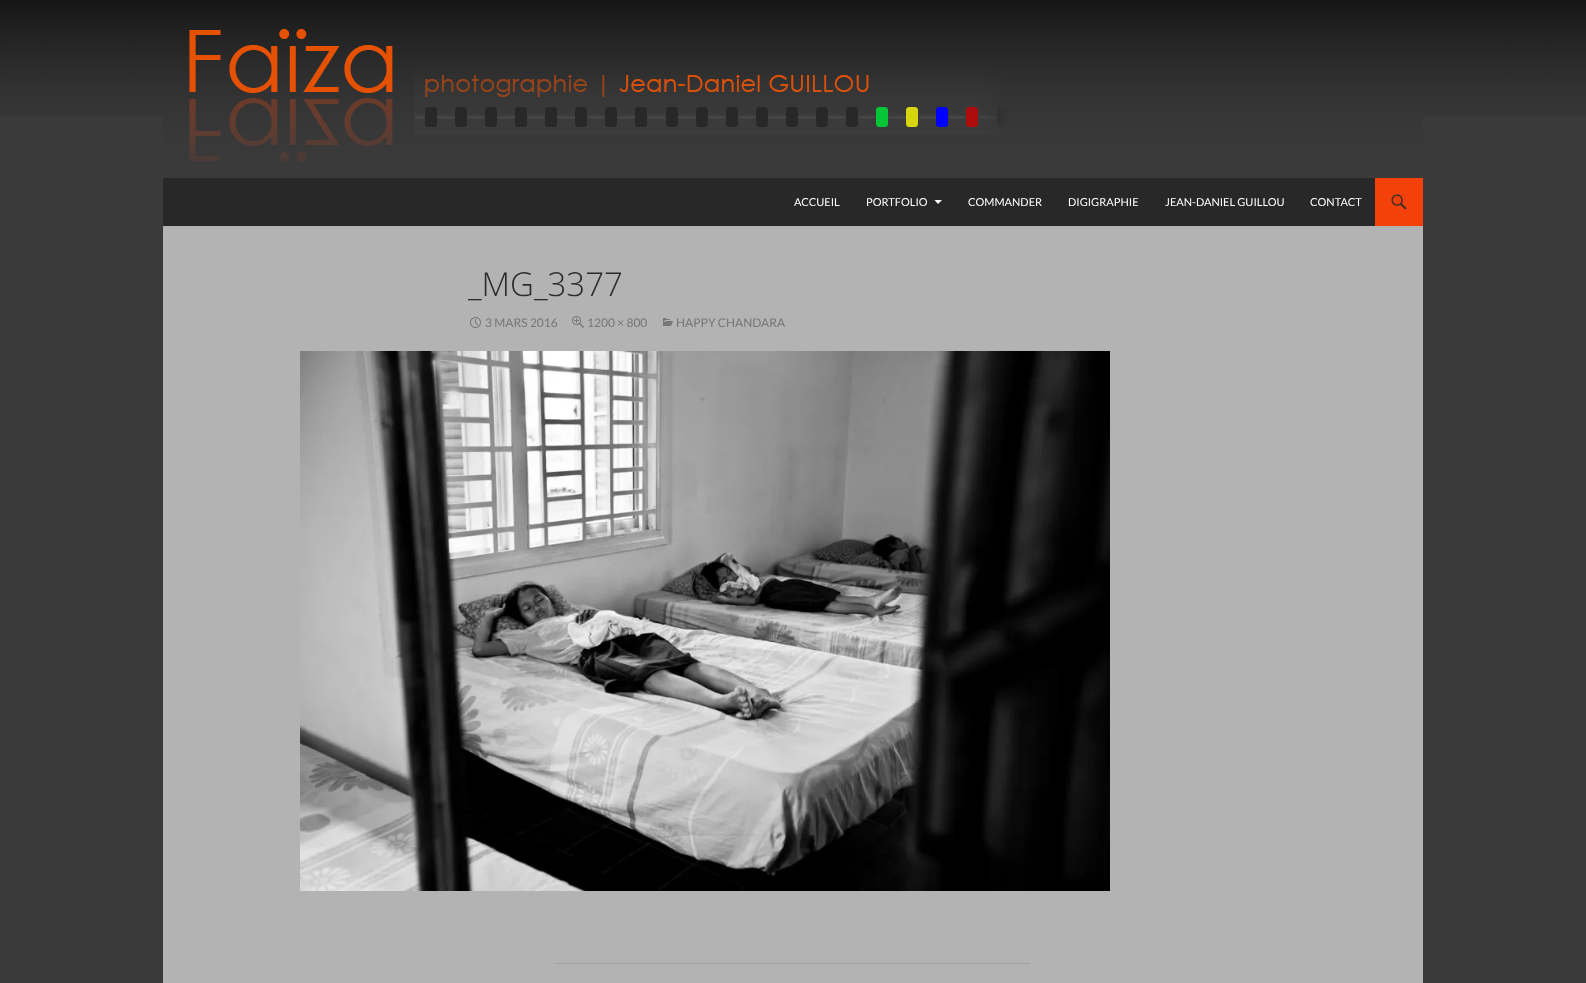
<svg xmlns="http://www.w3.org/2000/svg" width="1586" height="983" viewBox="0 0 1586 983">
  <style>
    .t1 { font: 11px Lato; fill: #fff; }
    .t2 { font: 300 33px Open Sans; fill: #2b2b2b; }
    .t3 { font: 12px Lato; fill: #767676; }
  </style>
  <rect width="100%" height="100%" fill="#3a3a3a"/>
  <image x="0" y="0" width="1586" height="116" href="images/1.png"/>
  <image x="163" y="0" width="1260" height="178" href="images/2.png"/>
  <rect x="163" y="178" width="1212" height="48" fill="#282828"/>
  <text x="794" y="206" class="t1">ACCUEIL</text>
  <text x="866" y="206" class="t1">PORTFOLIO</text>
  <path d="M934.5 200H942L938 204Z" fill="#fff"/>
  <text x="968" y="206" class="t1">COMMANDER</text>
  <text x="1068" y="206" class="t1">DIGIGRAPHIE</text>
  <text x="1165" y="206" class="t1">JEAN-DANIEL GUILLOU</text>
  <text x="1310" y="206" class="t1">CONTACT</text>
  <rect x="1375" y="178" width="48" height="48" fill="#f44009"/>
  <image x="1391" y="194" width="16" height="16" href="images/3.png"/>
  <rect x="163" y="226" width="1260" height="757" fill="#b3b3b3"/>
  <text x="468" y="296" class="t2">_MG_3377</text>
  <image x="470" y="317" width="11" height="11" href="images/4.png"/>
  <text x="485" y="327" class="t3">3 MARS 2016</text>
  <image x="572" y="316" width="12" height="12" href="images/5.png"/>
  <text x="587" y="327" class="t3">1200 × 800</text>
  <image x="663" y="318" width="10" height="8" href="images/6.png"/>
  <text x="676" y="327" class="t3">HAPPY CHANDARA</text>
  <image x="300" y="351" width="810" height="540" href="images/7.png"/>
  <rect x="556" y="963" width="474" height="1" fill="#a1a1a1"/>
</svg>
